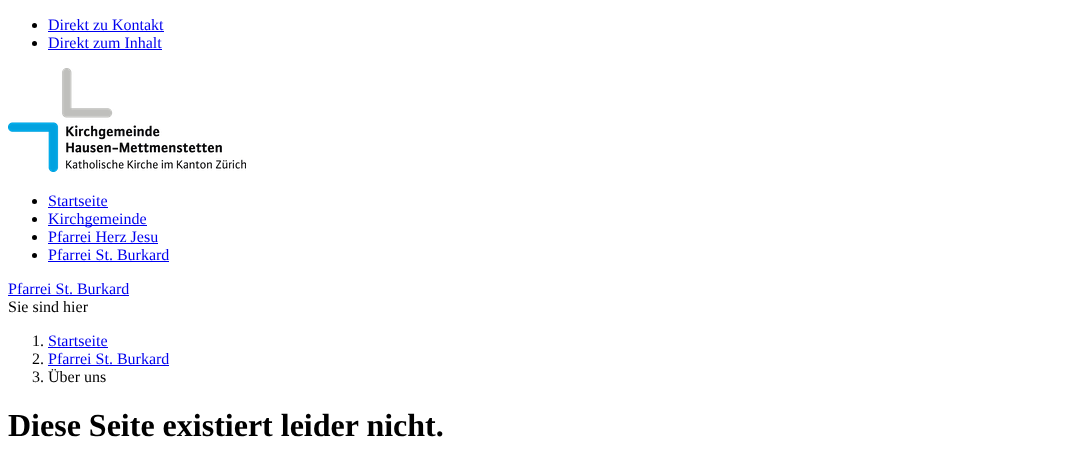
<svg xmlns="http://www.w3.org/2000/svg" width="1077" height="451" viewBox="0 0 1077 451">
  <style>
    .t1 { font: 16px Liberation Serif; fill: #00e; }
    .t2 { font: 16px Liberation Serif; fill: #000; }
    .t3 { font: bold 32px Liberation Serif; fill: #000; }
  </style>
  <rect width="100%" height="100%" fill="#fff"/>
  <circle cx="34.5" cy="25.5" r="2.5" fill="#000"/>
  <text x="48" y="30" class="t1">Direkt zu Kontakt</text>
  <rect x="48" y="31" width="116" height="1" fill="#00e"/>
  <circle cx="34.5" cy="43.5" r="2.5" fill="#000"/>
  <text x="48" y="48" class="t1">Direkt zum Inhalt</text>
  <rect x="48" y="49" width="114" height="1" fill="#00e"/>
  <image x="8" y="68" width="238" height="104" href="images/1.png"/>
  <circle cx="34.5" cy="201.5" r="2.5" fill="#000"/>
  <text x="48" y="206" class="t1">Startseite</text>
  <rect x="48" y="207" width="60" height="1" fill="#00e"/>
  <circle cx="34.5" cy="219.5" r="2.5" fill="#000"/>
  <rect x="48" y="225" width="99" height="1" fill="#00e"/>
  <text x="48" y="224" class="t1">Kirchgemeinde</text>
  <circle cx="34.5" cy="237.5" r="2.5" fill="#000"/>
  <text x="48" y="242" class="t1">Pfarrei Herz Jesu</text>
  <rect x="48" y="243" width="110" height="1" fill="#00e"/>
  <circle cx="34.5" cy="255.5" r="2.5" fill="#000"/>
  <text x="48" y="260" class="t1">Pfarrei St. Burkard</text>
  <rect x="48" y="261" width="121" height="1" fill="#00e"/>
  <text x="8" y="294" class="t1">Pfarrei St. Burkard</text>
  <rect x="8" y="295" width="121" height="1" fill="#00e"/>
  <text x="8" y="312" class="t2">Sie sind hier</text>
  <text x="32" y="346" class="t2">1.</text>
  <text x="48" y="346" class="t1">Startseite</text>
  <rect x="48" y="347" width="60" height="1" fill="#00e"/>
  <text x="32" y="364" class="t2">2.</text>
  <text x="48" y="364" class="t1">Pfarrei St. Burkard</text>
  <rect x="48" y="365" width="121" height="1" fill="#00e"/>
  <text x="32" y="382" class="t2">3. Über uns</text>
  <text x="8" y="436" class="t3">Diese Seite existiert leider nicht.</text>
</svg>
